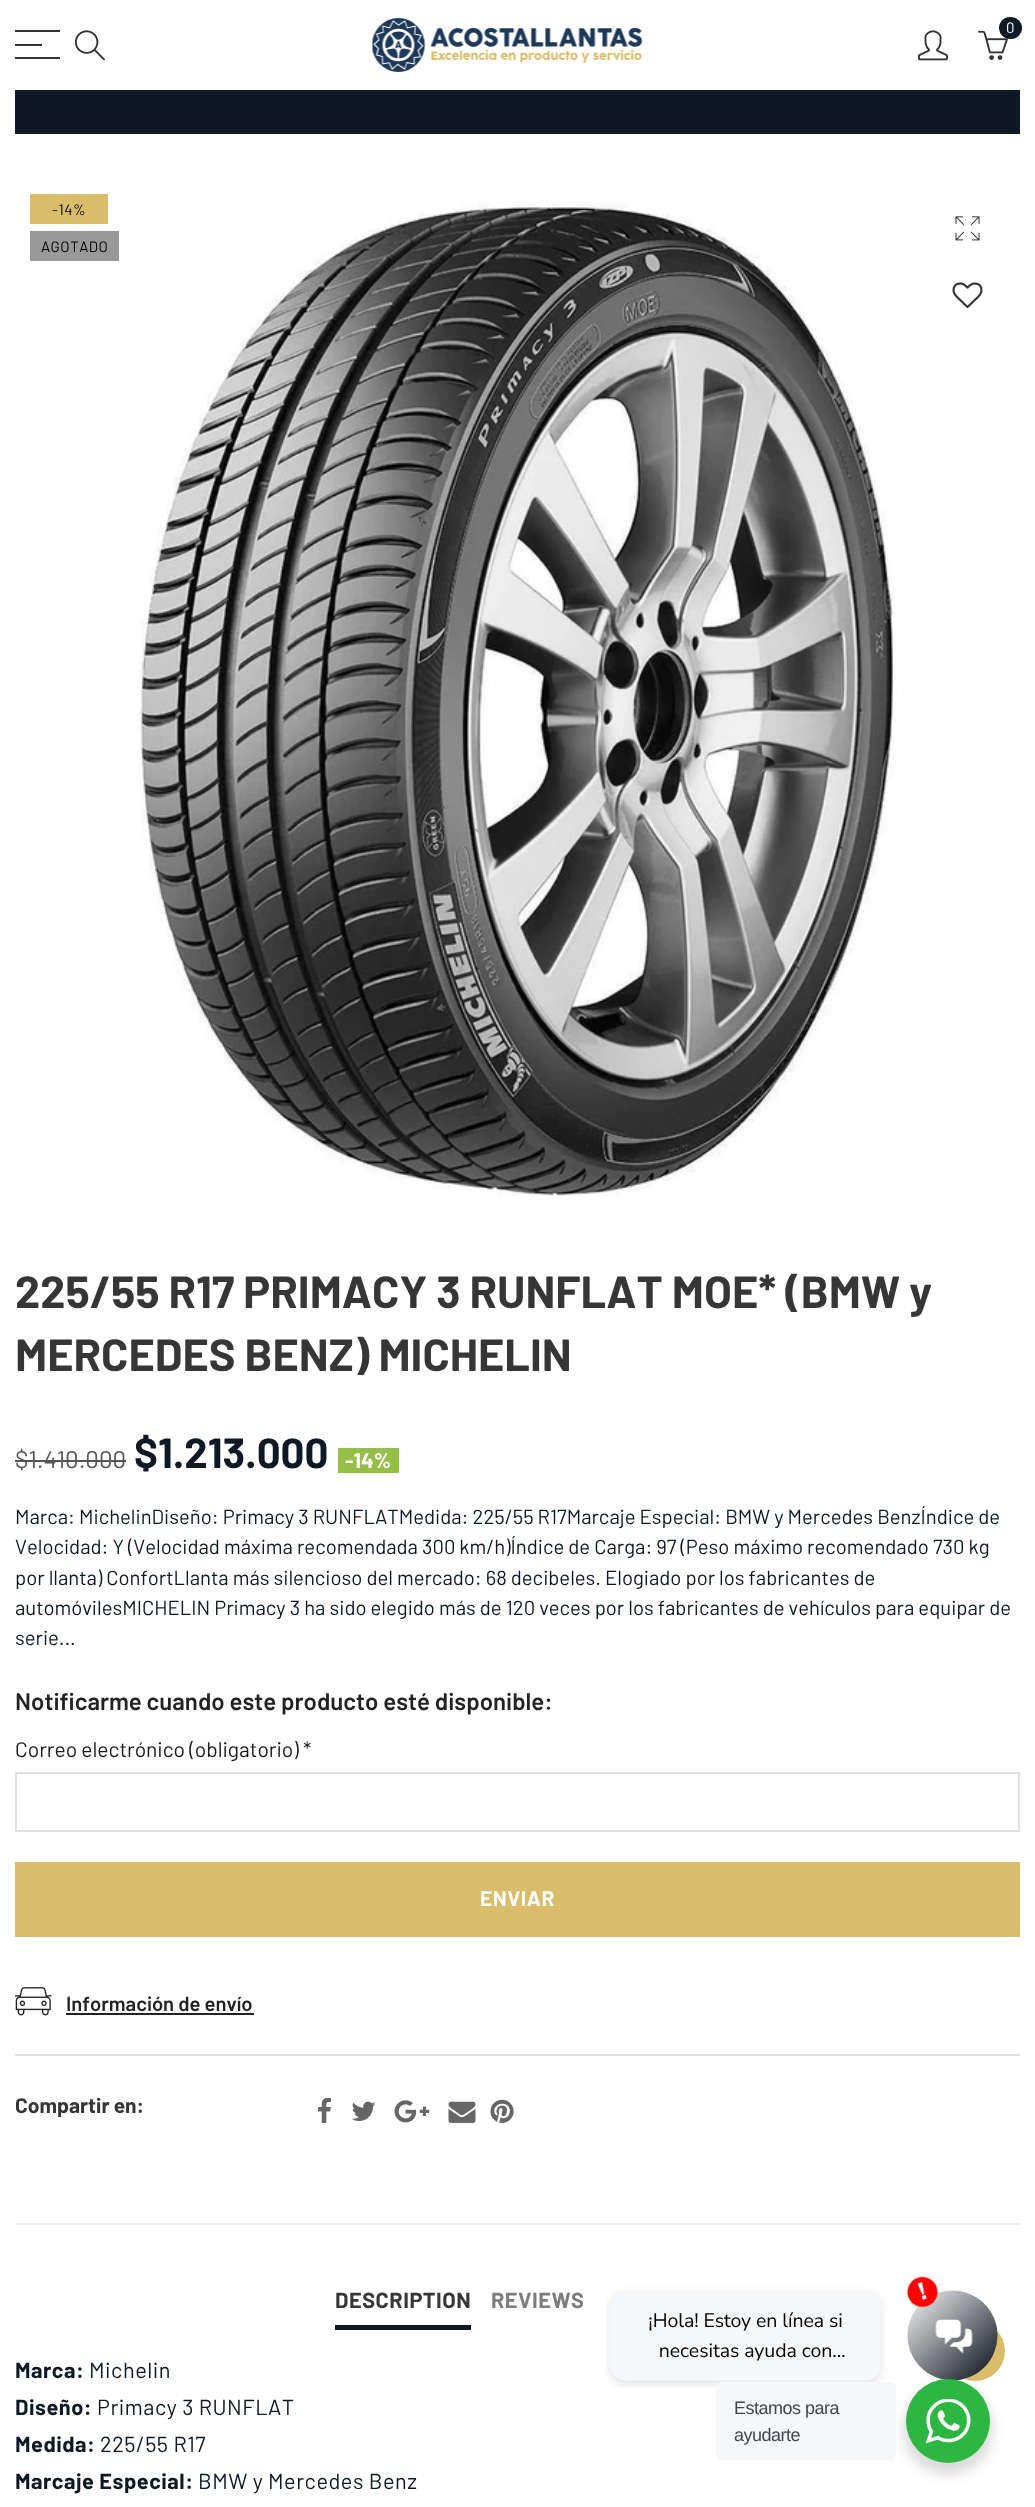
<svg xmlns="http://www.w3.org/2000/svg" width="1035" height="2507" viewBox="0 0 1035 2507">
  <style>*{font-kerning:none!important;font-variant-ligatures:none!important}</style>
  <style>
    .t1 { font: 15px Barlow; fill: #fff; }
    .t2 { font: 15px Barlow; letter-spacing: 0.5px; fill: #000; }
    .t3 { font: bold 45px Barlow; fill: #363636; }
    .t4 { font: 24px Barlow; fill: #555; }
    .t5 { font: bold 42px Barlow; fill: #0f1926; }
    .t6 { font: bold 21px Barlow; fill: #fff; }
    .t7 { font: 20.25px Barlow; fill: #0f1926; }
    .t8 { font: 600 24px Barlow; fill: #222; }
    .t9 { font: 21px Barlow; fill: #1b1919; }
    .t10 { font: bold 21px Barlow; letter-spacing: 0.5px; fill: #fff; }
    .t11 { font: 600 20.25px Barlow; fill: #222; }
    .t12 { font: bold 21px Barlow; fill: #363636; }
    .t13 { font: bold 21.75px Barlow; letter-spacing: 0.5px; fill: #363636; }
    .t14 { font: bold 21.75px Barlow; letter-spacing: 0.5px; fill: #7d7d7d; }
    .t15 { font: bold 21.75px Barlow; letter-spacing: 0.5px; fill: #0f1926; }
    .t16 { font: 21.75px Barlow; letter-spacing: 0.5px; fill: #0f1926; }
    .t17 { font: 18px Liberation Sans; letter-spacing: -0.5px; fill: #43474e; }
  </style>
  <rect width="100%" height="100%" fill="#fff"/>
  <image x="372" y="18" width="271" height="54" href="images/1.png"/>
  <image x="978" y="30" width="30" height="30" href="images/2.png"/>
  <rect x="999" y="17" width="23" height="22" rx="11" fill="#0f1926"/>
  <text x="1006" y="33" class="t1">0</text>
  <image x="918" y="30" width="30" height="31" href="images/3.png"/>
  <rect x="15" y="30" width="45" height="2" fill="#333"/>
  <rect x="15" y="44" width="27" height="2" fill="#333"/>
  <rect x="15" y="57" width="45" height="2" fill="#333"/>
  <image x="74" y="30" width="31" height="31" href="images/4.png"/>
  <rect x="15" y="90" width="1005" height="44" fill="#0f1926"/>
  <rect x="30" y="194" width="78" height="30" fill="#d9bd6a"/>
  <text x="52" y="215" class="t2">-14%</text>
  <rect x="30" y="231" width="89" height="30" fill="#999"/>
  <text x="41" y="252" class="t2">AGOTADO</text>
  <image x="138" y="202" width="759" height="994" href="images/5.png"/>
  <image x="955" y="216" width="25" height="25" href="images/6.png"/>
  <image x="952" y="282" width="31" height="27" href="images/7.png"/>
  <text x="15" y="1308" class="t3">225/55 R17 PRIMACY 3 RUNFLAT MOE* (BMW y</text>
  <text x="15" y="1371" class="t3">MERCEDES BENZ) MICHELIN</text>
  <text x="15" y="1468" class="t4">$1.410.000</text>
  <rect x="15" y="1460" width="111" height="2" fill="#555"/>
  <text x="134" y="1468" class="t5">$1.213.000</text>
  <rect x="338" y="1448" width="61" height="25" fill="#95bf47"/>
  <text x="345" y="1468" class="t6">-14%</text>
  <text x="15" y="1524" class="t7">Marca: MichelinDiseño: Primacy 3 RUNFLATMedida: 225/55 R17Marcaje Especial: BMW y Mercedes BenzÍndice de</text>
  <text x="15" y="1554" class="t7">Velocidad: Y (Velocidad máxima recomendada 300 km/h)Índice de Carga: 97 (Peso máximo recomendado</text>
  <text x="933" y="1554" class="t7">730 kg</text>
  <text x="15" y="1585" class="t7">por llanta) ConfortLlanta más silencioso del mercado: 68 decibeles. Elogiado por los fabricantes de</text>
  <text x="15" y="1615" class="t7">automóvilesMICHELIN Primacy 3 ha sido elegido más de 120 veces por los fabricantes de vehículos para equipar de</text>
  <text x="15" y="1645" class="t7">serie...</text>
  <text x="15" y="1710" class="t8">Notificarme cuando este producto esté disponible:</text>
  <text x="15" y="1757" class="t9">Correo electrónico (obligatorio) *</text>
  <rect x="16" y="1773" width="1003" height="58" fill="none" stroke="#e0e0e0" stroke-width="2"/>
  <rect x="15" y="1862" width="1005" height="75" fill="#d9bd6a"/>
  <text x="480" y="1906" class="t10">ENVIAR</text>
  <image x="15" y="1987" width="37" height="29" href="images/8.png"/>
  <text x="66" y="2011" class="t11">Información de envío</text>
  <rect x="66" y="2013" width="188" height="2" fill="#222"/>
  <rect x="15" y="2054" width="1005" height="2" fill="#e0e0e0"/>
  <text x="15" y="2113" class="t12">Compartir en:</text>
  <image x="317" y="2097" width="14" height="26" href="images/9.png"/>
  <image x="352" y="2101" width="24" height="20" href="images/10.png"/>
  <image x="394" y="2100" width="36" height="23" href="images/11.png"/>
  <image x="448" y="2101" width="28" height="22" href="images/12.png"/>
  <image x="490" y="2099" width="24" height="24" href="images/13.png"/>
  <rect x="15" y="2223" width="1005" height="2" fill="#ececec"/>
  <text x="335" y="2308" class="t13">DESCRIPTION</text>
  <rect x="335" y="2325" width="136" height="5" fill="#0f1926"/>
  <text x="491" y="2308" class="t14">REVIEWS</text>
  <text x="15" y="2378" class="t15">Marca:</text>
  <text x="89" y="2378" class="t16">Michelin</text>
  <text x="15" y="2415" class="t15">Diseño:</text>
  <text x="97" y="2415" class="t16">Primacy 3 RUNFLAT</text>
  <text x="15" y="2452" class="t15">Medida:</text>
  <text x="100" y="2452" class="t16">225/55 R17</text>
  <text x="15" y="2489" class="t15">Marcaje Especial:</text>
  <text x="198" y="2489" class="t16">BMW y Mercedes Benz</text>
  <circle cx="975" cy="2351" r="30" fill="#d9bd6a"/>
  <image x="606" y="2276" width="392" height="112" href="images/14.png"/>
  <rect x="903" y="2385" width="90" height="90" rx="45" fill="#00000024" filter="blur(6px)"/>
  <rect x="716" y="2382" width="180" height="78" rx="6" fill="#f5f7f9"/>
  <text x="734" y="2414" class="t17">Estamos para</text>
  <text x="734" y="2441" class="t17">ayudarte</text>
  <circle cx="948" cy="2421" r="42" fill="#2db742"/>
  <image x="926" y="2399" width="45" height="45" href="images/15.png"/>
</svg>
